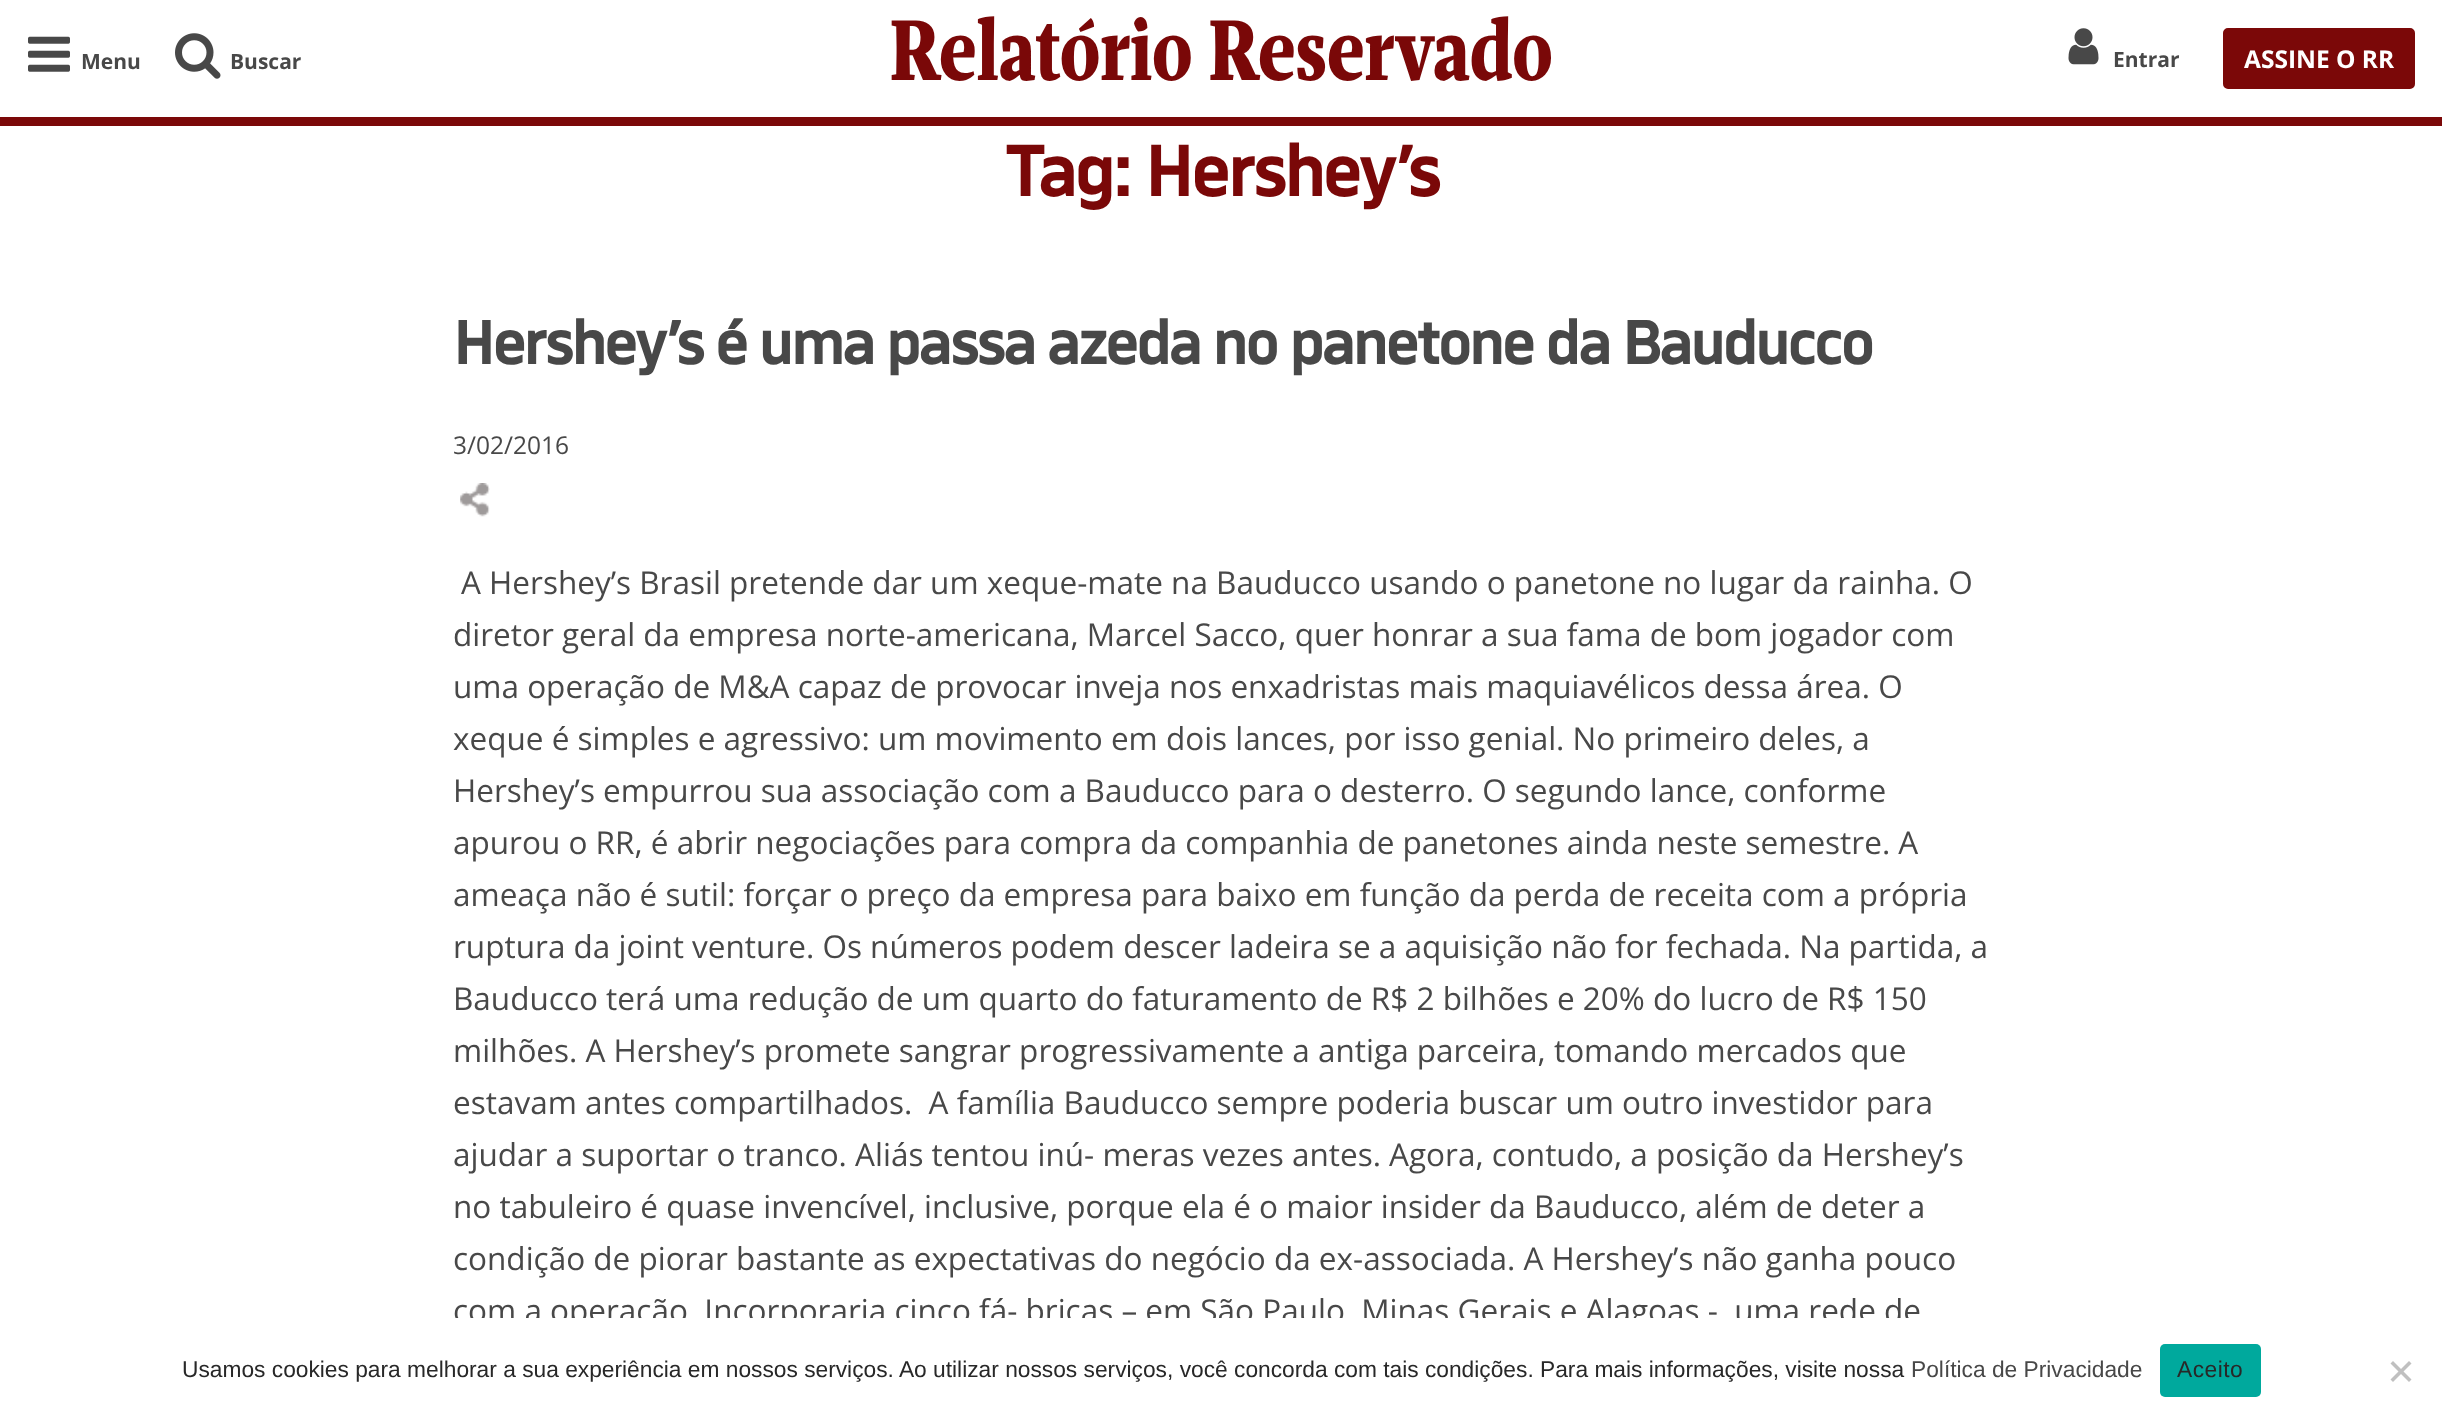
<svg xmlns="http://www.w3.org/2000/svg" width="2442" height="1423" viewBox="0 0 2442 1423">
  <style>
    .t1 { font: bold 21px Open Sans; fill: #484848; }
    .t2 { font: bold 87.5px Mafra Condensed; fill: #7a0808; }
    .t3 { font: bold 24.5px Open Sans; fill: #fff; }
    .t4 { font: bold 73.5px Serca; letter-spacing: -1.75px; fill: #7a0808; }
    .t5 { font: bold 63px Serca; letter-spacing: -1.75px; fill: #484848; }
    .t6 { font: 24.5px Open Sans; fill: #484848; }
    .t7 { font: 31.5px Open Sans; fill: #484848; }
    .t8 { font: 22.75px Liberation Sans; fill: #282828; }
    .t9 { font: 22.75px Liberation Sans; fill: #484848; }
    .t10 { font: 22.75px Liberation Sans; letter-spacing: 0.5px; fill: #282828; }
  </style>
  <rect width="100%" height="100%" fill="#fff"/>
  <rect x="0" y="117" width="2442" height="9" fill="#7b0808"/>
  <image x="28" y="36" width="42" height="36" href="images/1.png"/>
  <text x="81" y="69" class="t1">Menu</text>
  <image x="175" y="33" width="46" height="46" href="images/2.png"/>
  <text x="230" y="69" class="t1">Buscar</text>
  <text x="890" y="80" class="t2">Relatório Reservado</text>
  <image x="2068" y="28" width="31" height="37" href="images/3.png"/>
  <text x="2113" y="67" class="t1">Entrar</text>
  <rect x="2225" y="30" width="188" height="57" rx="3" fill="#7b0808" stroke="#7b0808" stroke-width="4"/>
  <text x="2244" y="68" class="t3">ASSINE O RR</text>
  <text x="1004" y="196" class="t4">Tag: Hershey’s</text>
  <text x="453" y="364" class="t5">Hershey’s é uma passa azeda no panetone da Bauducco</text>
  <text x="453" y="454" class="t6">3/02/2016</text>
  <image x="460" y="483" width="30" height="34" href="images/4.png"/>
  <text x="461" y="594" class="t7">A Hershey’s Brasil pretende dar um xeque-mate na Bauducco usando o panetone no lugar da rainha. O</text>
  <text x="453" y="646" class="t7">diretor geral da empresa norte-americana, Marcel Sacco, quer honrar a sua fama de bom jogador com</text>
  <text x="453" y="698" class="t7">uma operação de M&amp;A capaz de provocar inveja nos enxadristas mais maquiavélicos dessa área. O</text>
  <text x="453" y="750" class="t7">xeque é simples e agressivo: um movimento em dois lances, por isso genial. No primeiro deles, a</text>
  <text x="453" y="802" class="t7">Hershey’s empurrou sua associação com a Bauducco para o desterro. O segundo lance, conforme</text>
  <text x="453" y="854" class="t7">apurou o RR, é abrir negociações para compra da companhia de panetones ainda neste semestre. A</text>
  <text x="453" y="906" class="t7">ameaça não é sutil: forçar o preço da empresa para baixo em função da perda de receita com a própria</text>
  <text x="453" y="958" class="t7">ruptura da joint venture. Os números podem descer ladeira se a aquisição não for fechada. Na partida, a</text>
  <text x="453" y="1010" class="t7">Bauducco terá uma redução de um quarto do faturamento de R$ 2 bilhões e 20% do lucro de R$ 150</text>
  <text x="453" y="1062" class="t7">milhões. A Hershey’s promete sangrar progressivamente a antiga parceira, tomando mercados que</text>
  <text x="453" y="1114" class="t7" xml:space="preserve">estavam antes compartilhados.  A família Bauducco sempre poderia buscar um outro investidor para</text>
  <text x="453" y="1166" class="t7">ajudar a suportar o tranco. Aliás tentou inú- meras vezes antes. Agora, contudo, a posição da Hershey’s</text>
  <text x="453" y="1218" class="t7">no tabuleiro é quase invencível, inclusive, porque ela é o maior insider da Bauducco, além de deter a</text>
  <text x="453" y="1270" class="t7">condição de piorar bastante as expectativas do negócio da ex-associada. A Hershey’s não ganha pouco</text>
  <text x="453" y="1322" class="t7">com a operação. Incorporaria cinco fá- bricas – em São Paulo, Minas Gerais e Alagoas -, uma rede de</text>
  <rect x="455" y="1318" width="1464" height="12" fill="#fff"/>
  <text x="182" y="1377" class="t8">Usamos cookies para melhorar a sua experiência em nossos serviços. Ao utilizar nossos serviços, você concorda com tais condições. Para mais informações, visite nossa</text>
  <text x="1911" y="1377" class="t9">Política de Privacidade</text>
  <rect x="2160" y="1344" width="101" height="53" rx="5" fill="#00a99d"/>
  <text x="2177" y="1377" class="t10">Aceito</text>
  <path d="M2409 1361L2411.5 1363.5L2393 1382L2390.5 1379.5Z" fill="#c0c0c0"/>
  <path d="M2390.5 1363.5L2393 1361L2411.5 1379.5L2409 1382Z" fill="#c0c0c0"/>
</svg>
